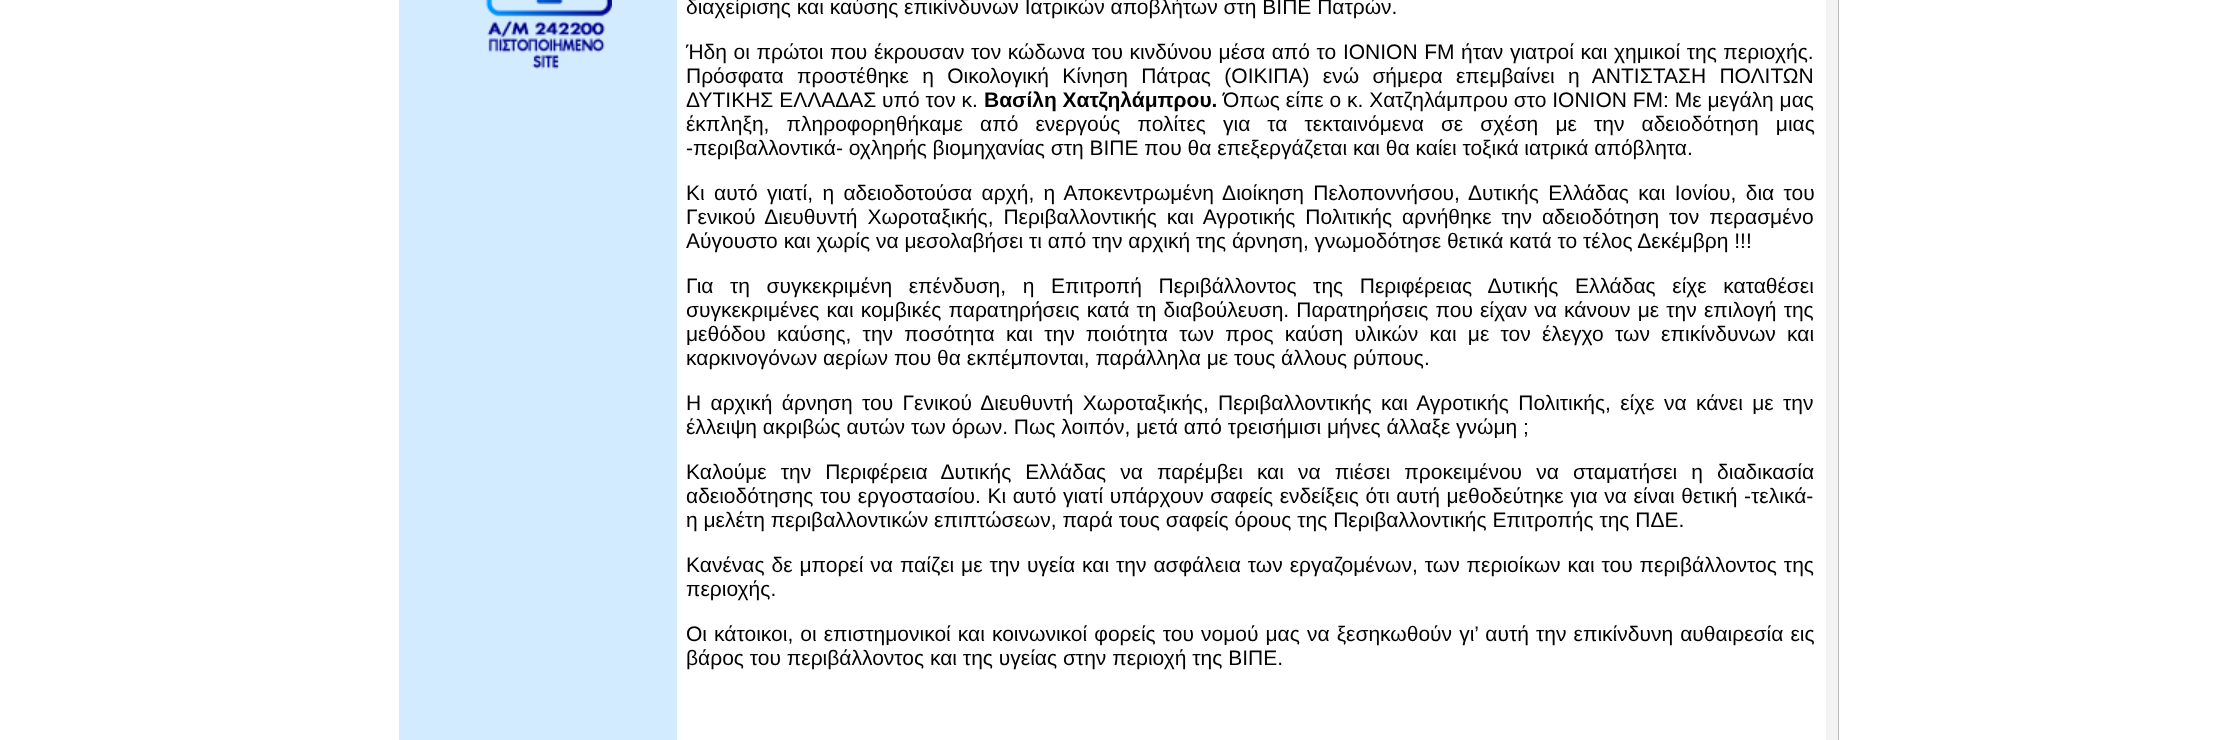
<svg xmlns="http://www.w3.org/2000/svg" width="2236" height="740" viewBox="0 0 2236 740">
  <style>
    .t1 { font: 21px Liberation Sans; fill: #000; }
    .t2 { font: bold 21px Liberation Sans; fill: #000; }
  </style>
  <rect width="100%" height="100%" fill="#fff"/>
  <rect x="399" y="0" width="278" height="740" fill="#d3ebff"/>
  <image x="485" y="0" width="127" height="69" href="images/1.png"/>
  <text x="686" y="14" class="t1">διαχείρισης και καύσης επικίνδυνων Ιατρικών αποβλήτων στη ΒΙΠΕ Πατρών.</text>
  <text x="686" y="59" word-spacing="0.75" class="t1">Ήδη οι πρώτοι που έκρουσαν τον κώδωνα του κινδύνου μέσα από το IONION FM ήταν γιατροί και χημικοί της περιοχής.</text>
  <text x="686" y="83" word-spacing="7.5" class="t1">Πρόσφατα προστέθηκε η Οικολογική Κίνηση Πάτρας (ΟΙΚΙΠΑ) ενώ σήμερα επεμβαίνει η ΑΝΤΙΣΤΑΣΗ ΠΟΛΙΤΩΝ</text>
  <text x="686" y="107" class="t1">ΔΥΤΙΚΗΣ ΕΛΛΑΔΑΣ υπό τον κ.</text>
  <text x="984" y="107" class="t2">Βασίλη Χατζηλάμπρου.</text>
  <text x="1223" y="107" class="t1">Όπως είπε ο κ. Χατζηλάμπρου στο IONION FM: Με μεγάλη μας</text>
  <text x="686" y="131" word-spacing="11.25" class="t1">έκπληξη, πληροφορηθήκαμε από ενεργούς πολίτες για τα τεκταινόμενα σε σχέση με την αδειοδότηση μιας</text>
  <text x="686" y="155" class="t1">-περιβαλλοντικά- οχληρής βιομηχανίας στη ΒΙΠΕ που θα επεξεργάζεται και θα καίει τοξικά ιατρικά απόβλητα.</text>
  <text x="686" y="200" word-spacing="3.5" class="t1">Κι αυτό γιατί, η αδειοδοτούσα αρχή, η Αποκεντρωμένη Διοίκηση Πελοποννήσου, Δυτικής Ελλάδας και Ιονίου, δια του</text>
  <text x="686" y="224" word-spacing="4.1" class="t1">Γενικού Διευθυντή Χωροταξικής, Περιβαλλοντικής και Αγροτικής Πολιτικής αρνήθηκε την αδειοδότηση τον περασμένο</text>
  <text x="686" y="248" class="t1">Αύγουστο και χωρίς να μεσολαβήσει τι από την αρχική της άρνηση, γνωμοδότησε θετικά κατά το τέλος Δεκέμβρη !!!</text>
  <text x="686" y="293" word-spacing="10.75" class="t1">Για τη συγκεκριμένη επένδυση, η Επιτροπή Περιβάλλοντος της Περιφέρειας Δυτικής Ελλάδας είχε καταθέσει</text>
  <text x="686" y="317" word-spacing="1.3" class="t1">συγκεκριμένες και κομβικές παρατηρήσεις κατά τη διαβούλευση. Παρατηρήσεις που είχαν να κάνουν με την επιλογή της</text>
  <text x="686" y="341" word-spacing="5.4" class="t1">μεθόδου καύσης, την ποσότητα και την ποιότητα των προς καύση υλικών και με τον έλεγχο των επικίνδυνων και</text>
  <text x="686" y="365" class="t1">καρκινογόνων αερίων που θα εκπέμπονται, παράλληλα με τους άλλους ρύπους.</text>
  <text x="686" y="410" word-spacing="3.5" class="t1">Η αρχική άρνηση του Γενικού Διευθυντή Χωροταξικής, Περιβαλλοντικής και Αγροτικής Πολιτικής, είχε να κάνει με την</text>
  <text x="686" y="434" class="t1">έλλειψη ακριβώς αυτών των όρων. Πως λοιπόν, μετά από τρεισήμισι μήνες άλλαξε γνώμη ;</text>
  <text x="686" y="479" word-spacing="8.25" class="t1">Καλούμε την Περιφέρεια Δυτικής Ελλάδας να παρέμβει και να πιέσει προκειμένου να σταματήσει η διαδικασία</text>
  <text x="686" y="503" word-spacing="0.75" class="t1">αδειοδότησης του εργοστασίου. Κι αυτό γιατί υπάρχουν σαφείς ενδείξεις ότι αυτή μεθοδεύτηκε για να είναι θετική -τελικά-</text>
  <text x="686" y="527" class="t1">η μελέτη περιβαλλοντικών επιπτώσεων, παρά τους σαφείς όρους της Περιβαλλοντικής Επιτροπής της ΠΔΕ.</text>
  <text x="686" y="572" word-spacing="1.1" class="t1">Κανένας δε μπορεί να παίζει με την υγεία και την ασφάλεια των εργαζομένων, των περιοίκων και του περιβάλλοντος της</text>
  <text x="686" y="596" class="t1">περιοχής.</text>
  <text x="686" y="641" word-spacing="1.25" class="t1">Οι κάτοικοι, οι επιστημονικοί και κοινωνικοί φορείς του νομού μας να ξεσηκωθούν γι’ αυτή την επικίνδυνη αυθαιρεσία εις</text>
  <text x="686" y="665" class="t1">βάρος του περιβάλλοντος και της υγείας στην περιοχή της ΒΙΠΕ.</text>
  <rect x="1826" y="0" width="12" height="740" fill="#f3f3f3"/>
  <rect x="1838" y="0" width="1" height="740" fill="#b9b9b9"/>
</svg>
